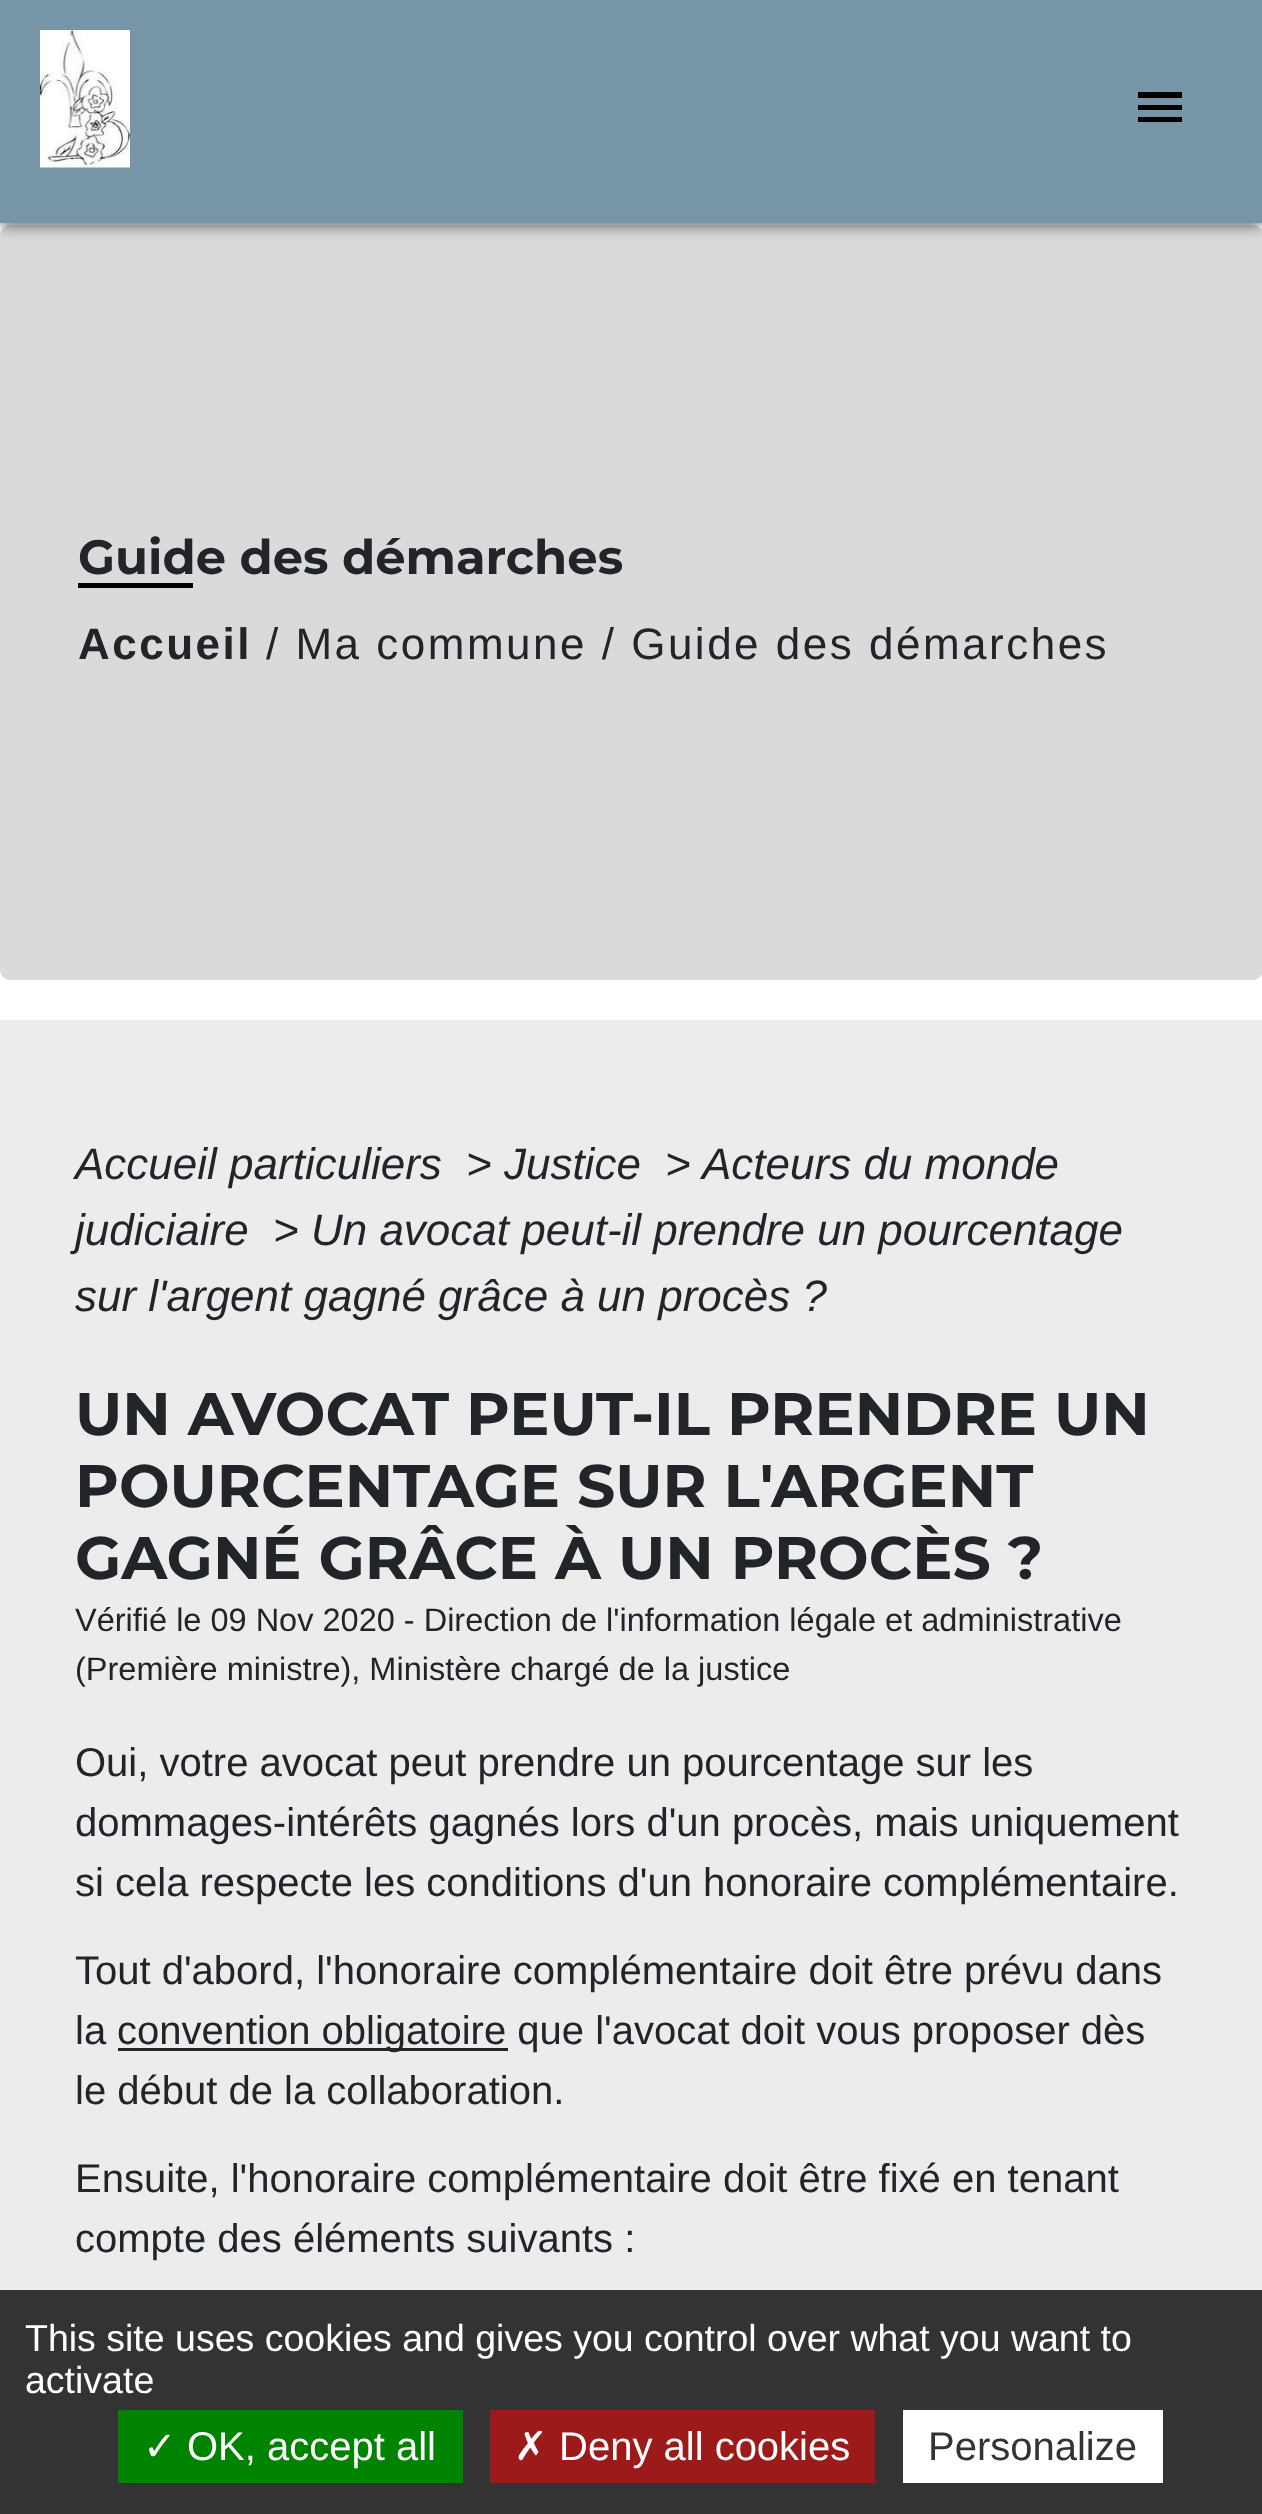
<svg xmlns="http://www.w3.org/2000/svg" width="1262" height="2514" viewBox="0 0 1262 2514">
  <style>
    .t1 { font: bold 48px Montserrat; fill: #212529; }
    .t2 { font: bold 44px Liberation Sans; letter-spacing: 2.5px; fill: #212529; }
    .t3 { font: 44px Liberation Sans; letter-spacing: 2.5px; fill: #212529; }
    .t4 { font: italic 44px Liberation Sans; fill: #212529; }
    .t5 { font: bold 60px Montserrat; fill: #212529; }
    .t6 { font: 32.5px Liberation Sans; fill: #212529; }
    .t7 { font: 40px Liberation Sans; fill: #212529; }
    .t8 { font: 37.5px Liberation Sans; fill: #fff; }
    .t9 { font: 40px DejaVu Sans; fill: #fff; }
    .t10 { font: 40px Liberation Sans; fill: #fff; }
    .t11 { font: 40px Liberation Sans; fill: #333; }
  </style>
  <rect width="100%" height="100%" fill="#fff"/>
  <rect x="0" y="225" width="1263" height="755" rx="10" fill="#dadada"/>
  <rect x="0" y="3" width="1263" height="222" fill="#535353" filter="blur(7.5px)"/>
  <rect x="0" y="0" width="1262" height="223" fill="#7695a7"/>
  <image x="40" y="30" width="90" height="138" href="images/1.png"/>
  <path d="M1138 92H1182V98H1138ZM1138 110V105H1182V110ZM1138 122V117H1182V122Z" fill="#000"/>
  <text x="78" y="574" class="t1">Guide des démarches</text>
  <rect x="78" y="583" width="115" height="5" fill="#000"/>
  <text x="78" y="659" class="t2">Accueil</text>
  <text x="266" y="659" class="t3">/ Ma commune / Guide des démarches</text>
  <rect x="0" y="1020" width="1262" height="1270" fill="#ececec"/>
  <text x="75" y="1179" class="t4">Accueil particuliers</text>
  <text x="466" y="1179" class="t4">&gt; Justice</text>
  <text x="665" y="1179" class="t4">&gt;</text>
  <text x="702" y="1179" class="t4">Acteurs du monde</text>
  <text x="75" y="1245" class="t4">judiciaire</text>
  <text x="273" y="1245" class="t4">&gt; Un avocat peut-il prendre un pourcentage</text>
  <text x="75" y="1311" class="t4">sur l'argent gagné grâce à un procès ?</text>
  <text x="75" y="1435" class="t5">UN AVOCAT PEUT-IL PRENDRE UN</text>
  <text x="75" y="1507" class="t5">POURCENTAGE SUR L'ARGENT</text>
  <text x="75" y="1579" class="t5">GAGNÉ GRÂCE À UN PROCÈS ?</text>
  <text x="75" y="1631" class="t6">Vérifié le 09 Nov 2020 - Direction de l'information légale et administrative</text>
  <text x="75" y="1680" class="t6">(Première ministre), Ministère chargé de la justice</text>
  <text x="75" y="1776" class="t7">Oui, votre avocat peut prendre un pourcentage sur les</text>
  <text x="75" y="1836" class="t7">dommages-intérêts gagnés lors d'un procès, mais uniquement</text>
  <text x="75" y="1896" class="t7">si cela respecte les conditions d'un honoraire complémentaire.</text>
  <text x="75" y="1984" class="t7">Tout d'abord, l'honoraire complémentaire doit être prévu dans</text>
  <text x="75" y="2044" class="t7">la</text>
  <rect x="118" y="2048" width="390" height="3" fill="#212529"/>
  <text x="117" y="2044" class="t7">convention obligatoire que l'avocat doit vous proposer dès</text>
  <text x="75" y="2104" class="t7">le début de la collaboration.</text>
  <text x="75" y="2192" class="t7">Ensuite, l'honoraire complémentaire doit être fixé en tenant</text>
  <text x="75" y="2252" class="t7">compte des éléments suivants :</text>
  <rect x="0" y="2290" width="1262" height="224" fill="#333"/>
  <text x="25" y="2351" class="t8">This site uses cookies and gives you control over what you want to</text>
  <text x="25" y="2393" class="t8">activate</text>
  <rect x="118" y="2410" width="345" height="73" fill="#008300"/>
  <text x="143" y="2460" class="t9">✓</text>
  <text x="187" y="2460" class="t10">OK, accept all</text>
  <rect x="490" y="2410" width="385" height="73" fill="#9c1a1a"/>
  <text x="514" y="2460" class="t9">✗</text>
  <text x="559" y="2460" class="t10">Deny all cookies</text>
  <rect x="903" y="2410" width="260" height="73" fill="#fff"/>
  <text x="928" y="2460" class="t11">Personalize</text>
</svg>
